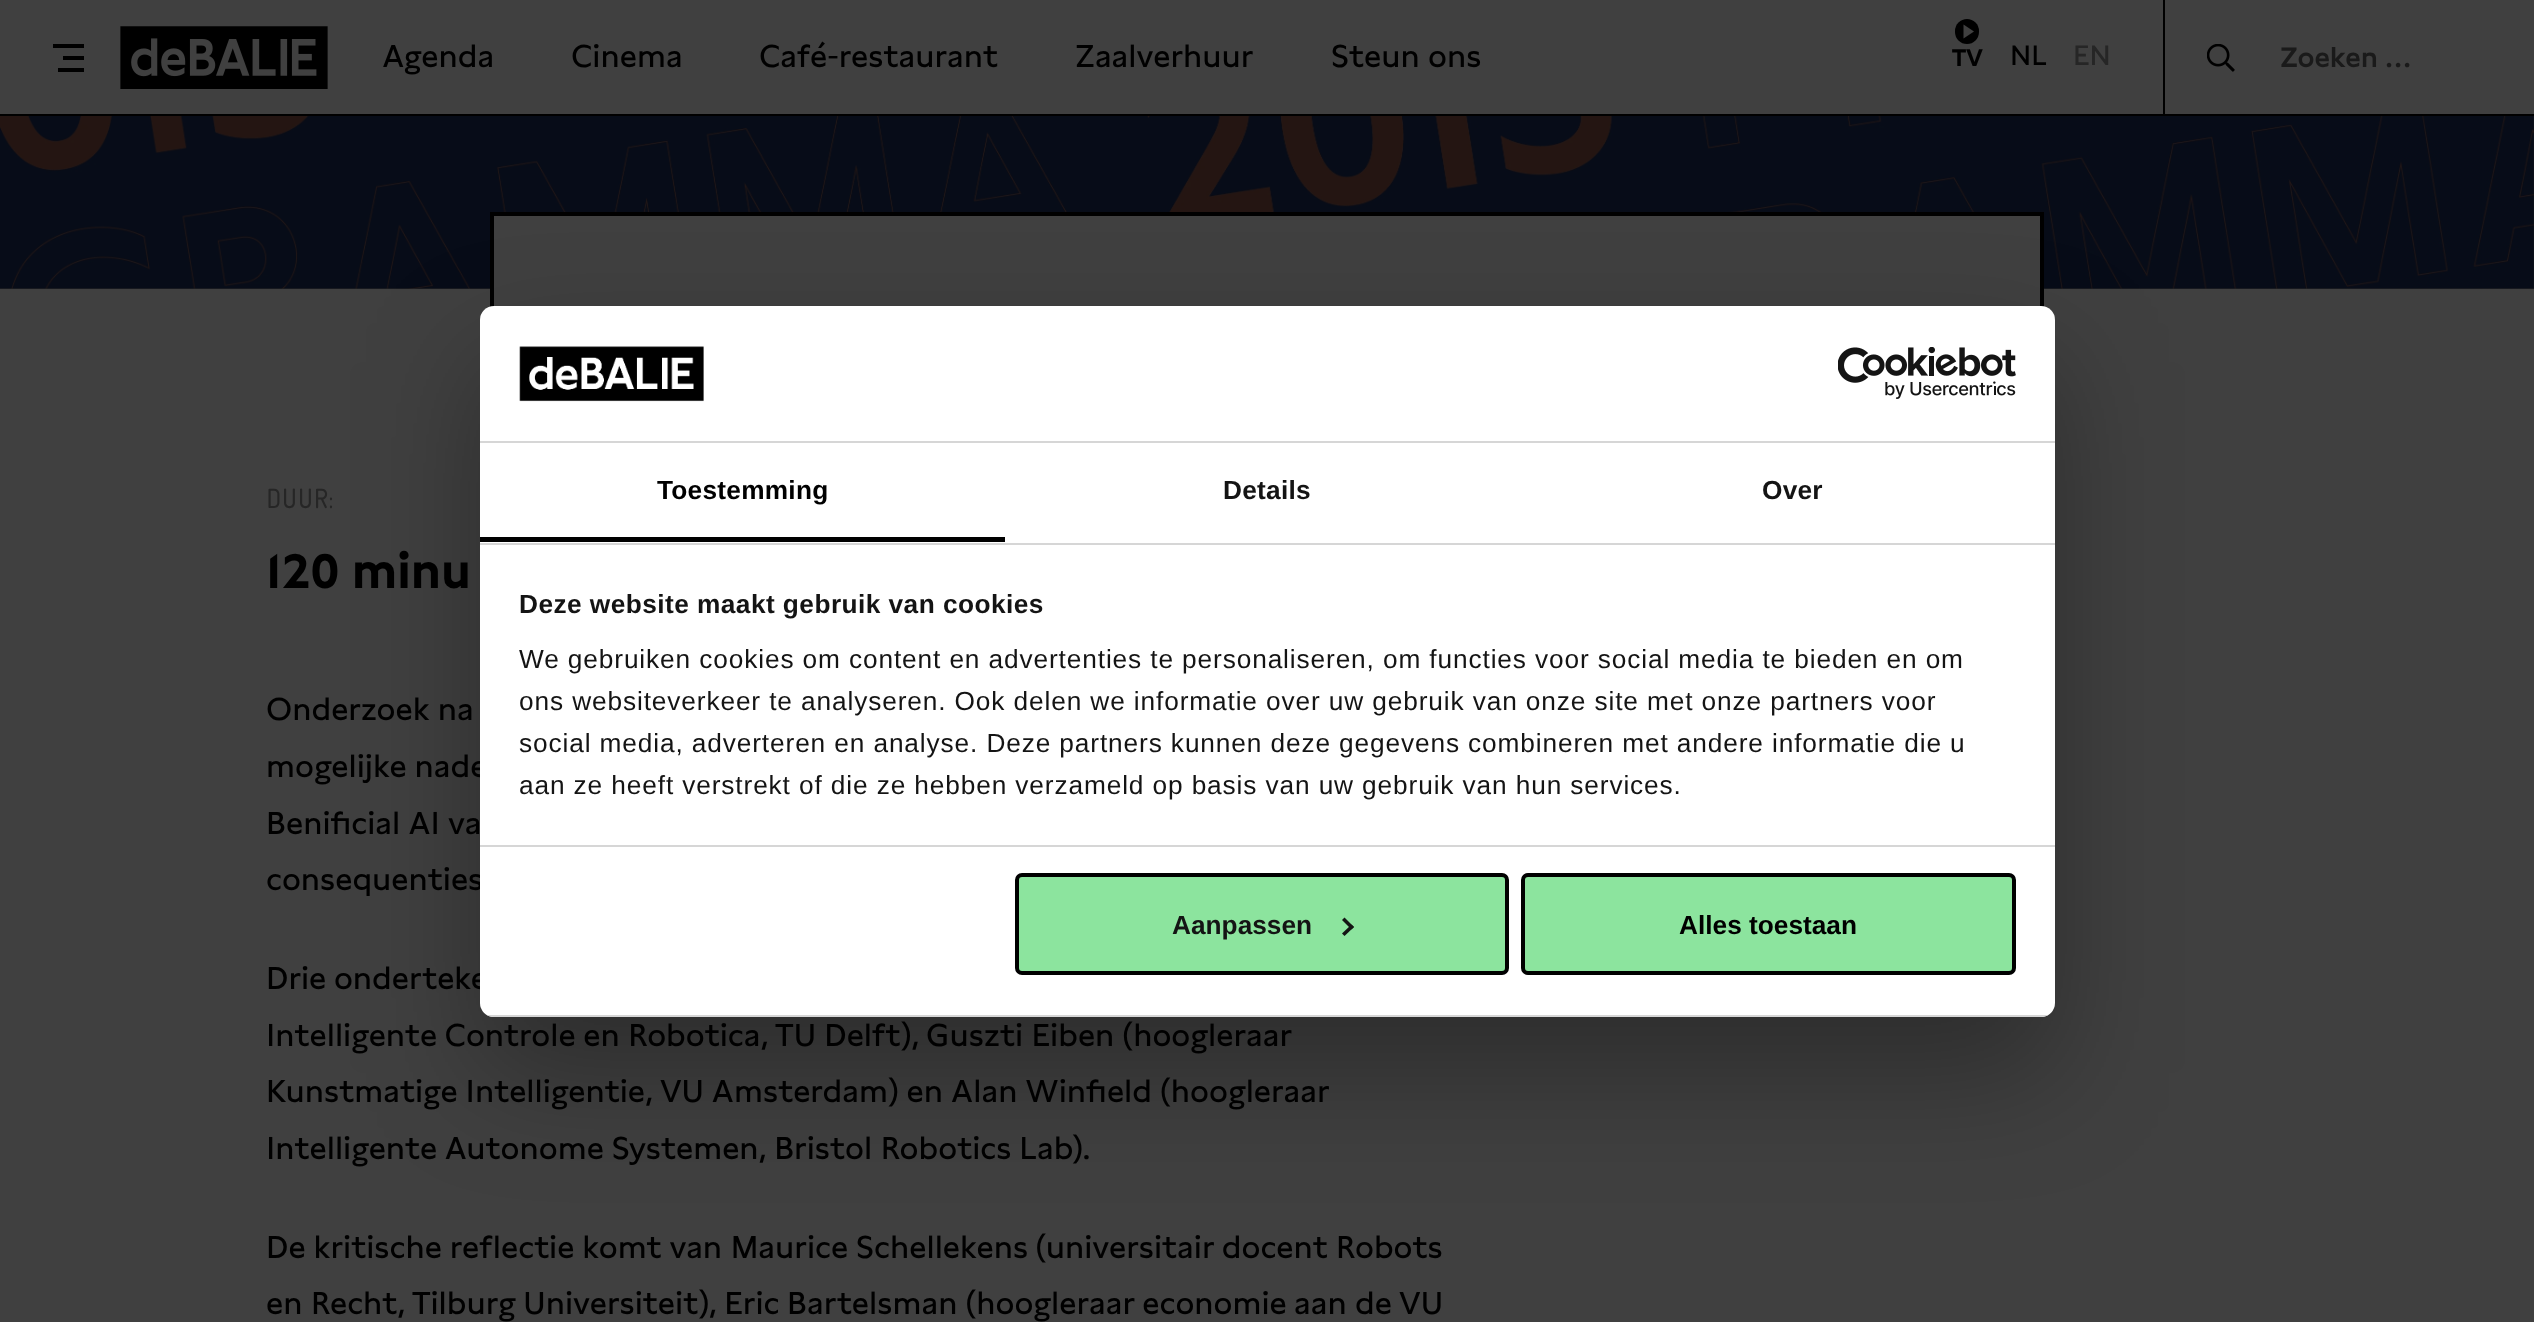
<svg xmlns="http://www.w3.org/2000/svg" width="2534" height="1322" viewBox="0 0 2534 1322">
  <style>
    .t1 { font: 31.5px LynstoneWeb; fill: #000; }
    .t2 { font: bold 24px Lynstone; fill: #000; }
    .t3 { font: 28px LynstoneWeb; fill: #000; }
    .t4 { font: 28px LynstoneWeb; fill: #262626; }
    .t5 { font: 600 28px LynstoneWeb; fill: #1a1a1a; }
    .t6 { font: bold 26.25px Liberation Sans; letter-spacing: 0.25px; fill: #000; }
    .t7 { font: bold 26.25px Liberation Sans; letter-spacing: 0.25px; fill: #141414; }
    .t8 { font: bold 26.25px Liberation Sans; letter-spacing: 0.45px; fill: #141414; }
    .t9 { font: 26.25px Liberation Sans; letter-spacing: 0.88px; fill: #141414; }
    .t10 { font: bold 26.25px Liberation Sans; fill: #141414; }
    .t11 { font: bold 26.25px Liberation Sans; fill: #000; }
    .t12 { font: 28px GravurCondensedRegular; fill: #262626; }
    .t13 { font: bold 49px Lynstone; fill: #000; }
  </style>
  <defs>
    <clipPath id="clip1"><rect x="480" y="306" width="1575" height="711" rx="14"/></clipPath>
  </defs>
  <rect width="100%" height="100%" fill="#404040"/>
  <rect x="0" y="288" width="2534" height="1" fill="#262626"/>
  <rect x="0" y="114" width="2534" height="2" fill="#000"/>
  <rect x="53" y="44" width="31" height="4" fill="#000"/>
  <rect x="63" y="56" width="21" height="4" fill="#000"/>
  <rect x="58" y="68" width="26" height="4" fill="#000"/>
  <image x="120" y="26" width="208" height="63" href="images/1.png"/>
  <text x="382" y="67" class="t1">Agenda</text>
  <text x="571" y="67" class="t1">Cinema</text>
  <text x="759" y="67" class="t1">Café-restaurant</text>
  <text x="1075" y="67" class="t1">Zaalverhuur</text>
  <text x="1331" y="67" class="t1">Steun ons</text>
  <rect x="1955" y="19" width="24" height="25" rx="12" fill="#000"/>
  <path d="M1963.5 38.5V24.5L1974 31.5Z" fill="#404040"/>
  <text x="1952" y="66" class="t2">TV</text>
  <text x="2010" y="65" class="t3">NL</text>
  <text x="2073" y="65" class="t4">EN</text>
  <image x="2207" y="44" width="28" height="28" href="images/2.png"/>
  <rect x="2163" y="0" width="2" height="114" fill="#000"/>
  <text x="2280" y="67" class="t5">Zoeken …</text>
  <image x="0" y="116" width="2534" height="173" href="images/5.png"/>
  <rect x="494" y="216" width="1546" height="73" fill="#404040"/>
  <rect x="492" y="214" width="1550" height="150" fill="none" stroke="#000" stroke-width="4"/>
  <rect x="480" y="362" width="1575" height="711" rx="14" fill="#0000004d" filter="blur(59.5px)"/>
  <text x="266" y="777" class="t1">mogelijke nade</text>
  <text x="266" y="890" class="t1">consequenties</text>
  <text x="266" y="989" class="t1">Drie onderteke</text>
  <rect x="480" y="306" width="1575" height="711" rx="14" fill="#fff"/>
  <rect x="480" y="441" width="1575" height="2" fill="#d6d6d6"/>
  <image x="519" y="346" width="185" height="56" href="images/3.png"/>
  <image x="1838" y="347" width="178" height="52" href="images/4.png"/>
  <rect x="480" y="543" width="1575" height="2" fill="#d6d6d6"/>
  <rect x="480" y="537" width="525" height="5" fill="#000"/>
  <text x="657" y="499" class="t6">Toestemming</text>
  <text x="1223" y="499" class="t7">Details</text>
  <text x="1762" y="499" class="t7">Over</text>
  <rect x="480" y="845" width="1575" height="2" fill="#d6d6d6"/>
  <text x="519" y="613" class="t8">Deze website maakt gebruik van cookies</text>
  <text x="519" y="668" class="t9">We gebruiken cookies om content en advertenties te personaliseren, om functies voor social media te bieden en om</text>
  <text x="519" y="710" class="t9">ons websiteverkeer te analyseren. Ook delen we informatie over uw gebruik van onze site met onze partners voor</text>
  <text x="519" y="752" class="t9">social media, adverteren en analyse. Deze partners kunnen deze gegevens combineren met andere informatie die u</text>
  <text x="519" y="794" class="t9">aan ze heeft verstrekt of die ze hebben verzameld op basis van uw gebruik van hun services.</text>
  <g clip-path="url(#clip1)">
    <rect x="480" y="1015" width="1575" height="2" fill="#d6d6d6"/>
  </g>
  <rect x="1017" y="875" width="490" height="98" rx="5" fill="#8ce49e" stroke="#000" stroke-width="4"/>
  <text x="1172" y="934" class="t10">Aanpassen</text>
  <path d="M1344.5 917.5L1354 927L1351.5 929.5L1342 920Z" fill="#141414"/>
  <path d="M1351.5 924.5L1354 927L1344.5 936L1342 933.5Z" fill="#141414"/>
  <rect x="1523" y="875" width="491" height="98" rx="5" fill="#8ce49e" stroke="#000" stroke-width="4"/>
  <text x="1679" y="934" class="t11">Alles toestaan</text>
  <text x="266" y="508" class="t12">DUUR:</text>
  <text x="266" y="588" class="t13">120 minu</text>
  <text x="266" y="720" class="t1">Onderzoek na</text>
  <text x="266" y="834" class="t1">Benificial AI va</text>
  <text x="266" y="1046" class="t1">Intelligente Controle en Robotica, TU Delft), Guszti Eiben (hoogleraar</text>
  <text x="266" y="1102" class="t1">Kunstmatige Intelligentie, VU Amsterdam) en Alan Winfield (hoogleraar</text>
  <text x="266" y="1159" class="t1">Intelligente Autonome Systemen, Bristol Robotics Lab).</text>
  <text x="266" y="1258" class="t1">De kritische reflectie komt van Maurice Schellekens (universitair docent Robots</text>
  <text x="266" y="1314" class="t1">en Recht, Tilburg Universiteit), Eric Bartelsman (hoogleraar economie aan de VU</text>
</svg>
